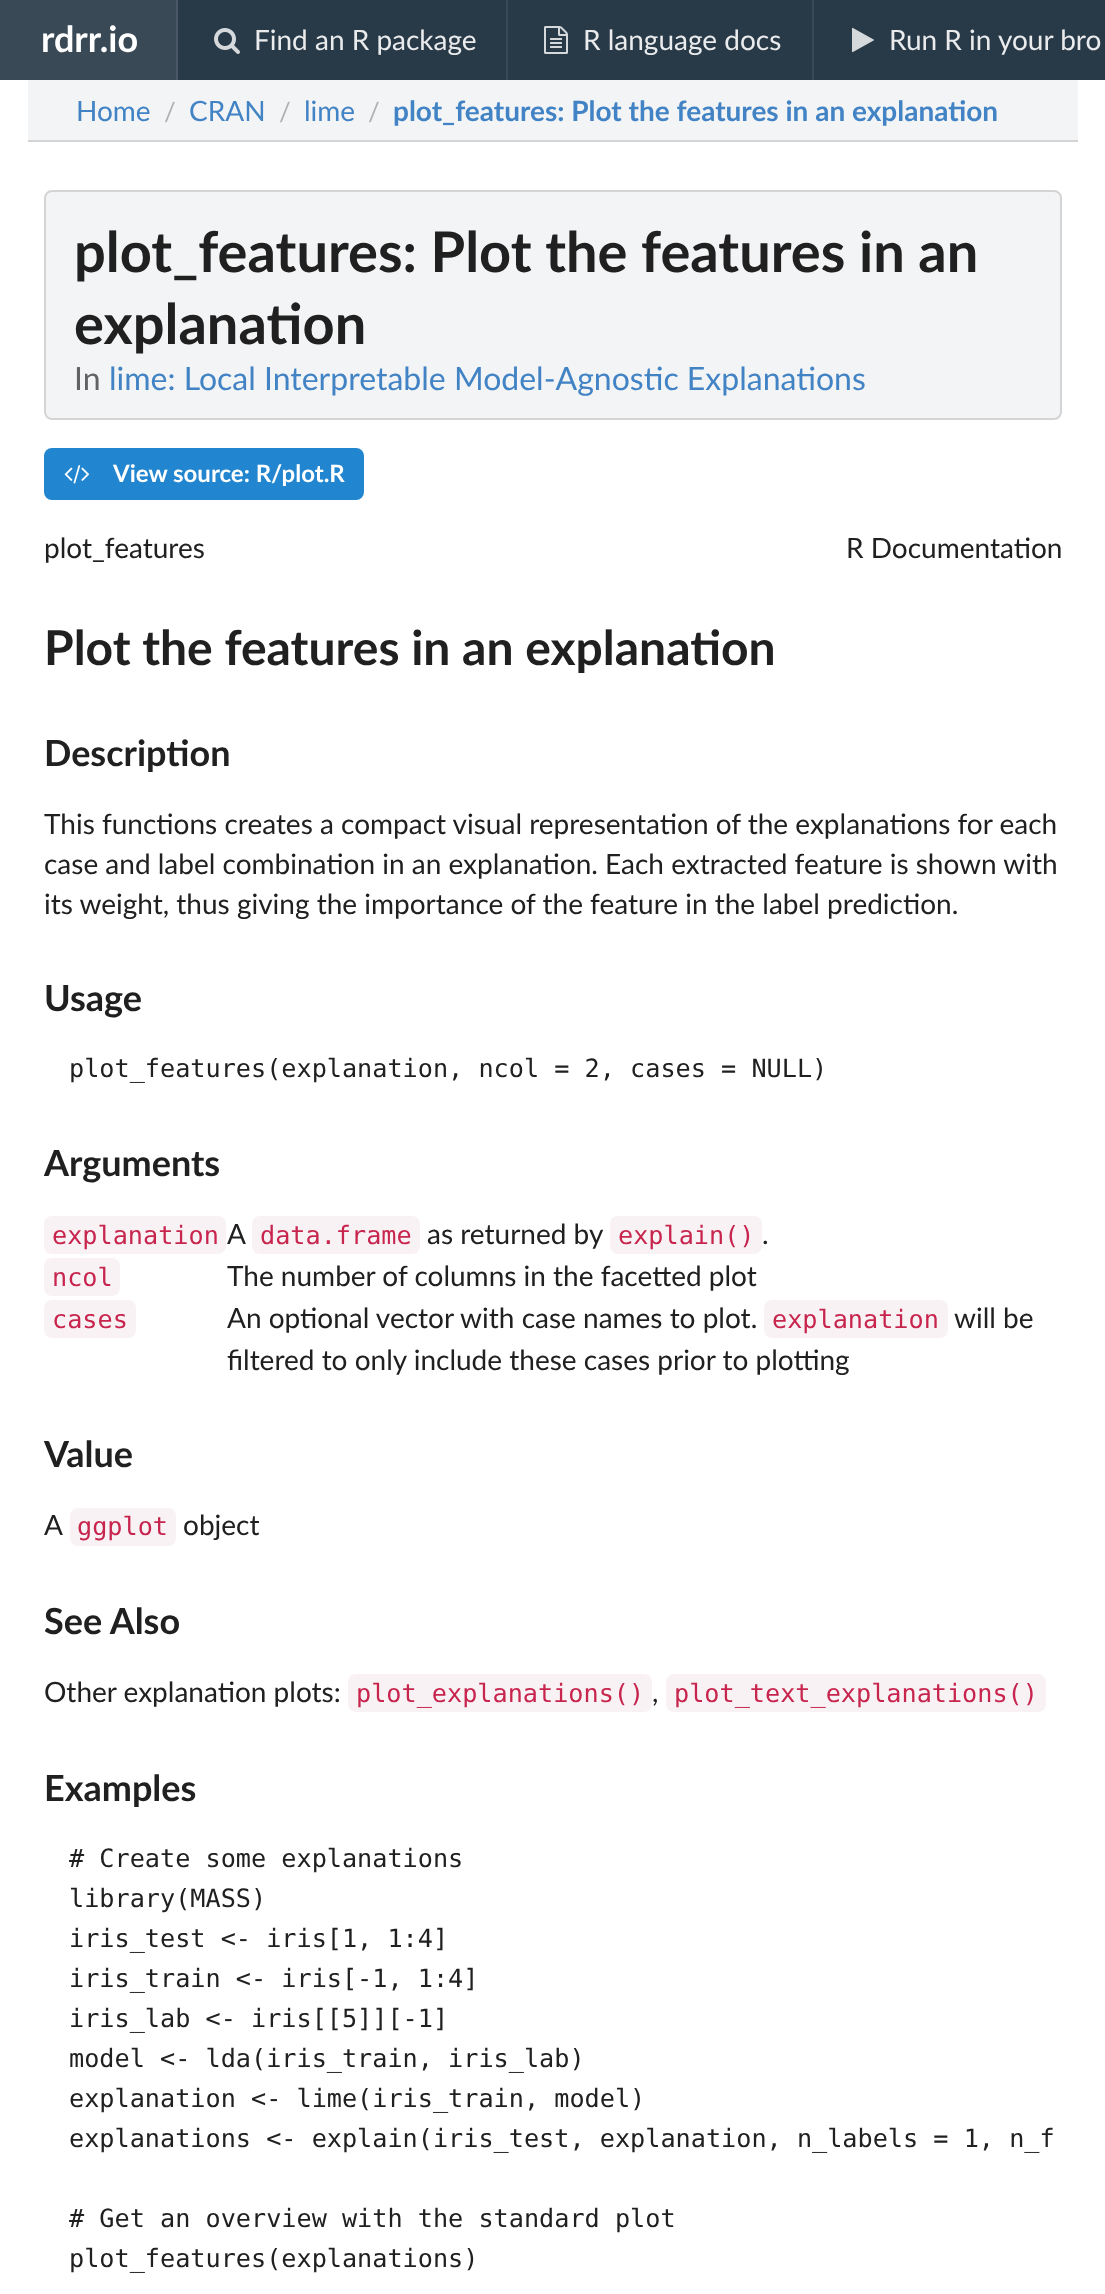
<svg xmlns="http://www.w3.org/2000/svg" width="1105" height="2294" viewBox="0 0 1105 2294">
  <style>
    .t1 { font: bold 36px Lato; fill: #fff; }
    .t2 { font: 28px Lato; fill: #eaebed; }
    .t3 { font: 28px Lato; fill: #4183c4; }
    .t4 { font: 26px Lato; fill: #afb0b1; }
    .t5 { font: bold 28px Lato; fill: #4183c4; }
    .t6 { font: bold 56px Lato; fill: #202020; }
    .t7 { font: 32px Lato; fill: #616262; }
    .t8 { font: 32px Lato; fill: #4183c4; }
    .t9 { font: bold 24px Lato; fill: #fff; }
    .t10 { font: 28px Lato; fill: #202020; }
    .t11 { font: bold 48px Lato; fill: #202020; }
    .t12 { font: bold 36px Lato; fill: #202020; }
    .t13 { font: 25.2px DejaVu Sans Mono; fill: #202020; }
    .t14 { font: 25.2px DejaVu Sans Mono; fill: #c7254e; }
  </style>
  <rect width="100%" height="100%" fill="#fff"/>
  <rect x="178" y="0" width="927" height="80" fill="#283947"/>
  <rect x="0" y="0" width="176" height="80" fill="#394956"/>
  <text x="41" y="52" class="t1">rdrr.io</text>
  <rect x="176" y="0" width="2" height="80" fill="#495864"/>
  <image x="214" y="28" width="26" height="26" href="images/1.png"/>
  <text x="254" y="50" class="t2">Find an R package</text>
  <rect x="506" y="0" width="2" height="80" fill="#394956"/>
  <image x="544" y="26" width="24" height="28" href="images/2.png"/>
  <text x="583" y="50" class="t2">R language docs</text>
  <rect x="812" y="0" width="2" height="80" fill="#394956"/>
  <image x="852" y="27" width="22" height="26" href="images/3.png"/>
  <text x="889" y="50" class="t2">Run R in your bro</text>
  <rect x="28" y="80" width="1050" height="60" fill="#f3f4f5"/>
  <rect x="28" y="140" width="1050" height="2" fill="#d4d4d5"/>
  <text x="76" y="121" class="t3">Home</text>
  <text x="164" y="121" class="t4">/</text>
  <text x="189" y="121" class="t3">CRAN</text>
  <text x="279" y="121" class="t4">/</text>
  <text x="304" y="121" class="t3">lime</text>
  <text x="368" y="121" class="t4">/</text>
  <text x="393" y="121" class="t5">plot_features: Plot the features in an explanation</text>
  <rect x="45" y="191" width="1016" height="228" rx="7" fill="#f3f4f5" stroke="#d4d4d5" stroke-width="2"/>
  <text x="74" y="272" class="t6">plot_features: Plot the features in an</text>
  <text x="74" y="344" class="t6">explanation</text>
  <text x="74" y="390" class="t7">In</text>
  <text x="109" y="390" class="t8">lime: Local Interpretable Model-Agnostic Explanations</text>
  <rect x="44" y="448" width="320" height="52" rx="8" fill="#2185d0"/>
  <image x="64" y="465" width="26" height="19" href="images/4.png"/>
  <text x="113" y="482" class="t9">View source: R/plot.R</text>
  <text x="44" y="558" class="t10">plot_features</text>
  <text x="846" y="558" class="t10">R Documentation</text>
  <text x="44" y="665" class="t11">Plot the features in an explanation</text>
  <text x="44" y="766" class="t12">Description</text>
  <text x="44" y="834" class="t10">This functions creates a compact visual representation of the explanations for each</text>
  <text x="44" y="874" class="t10">case and label combination in an explanation. Each extracted feature is shown with</text>
  <text x="44" y="914" class="t10">its weight, thus giving the importance of the feature in the label prediction.</text>
  <text x="44" y="1011" class="t12">Usage</text>
  <text x="69" y="1077" class="t13">plot_features(explanation, ncol = 2, cases = NULL)</text>
  <text x="44" y="1176" class="t12">Arguments</text>
  <rect x="44" y="1216" width="182" height="38" rx="8" fill="#f9f2f4"/>
  <text x="52" y="1244" class="t14">explanation</text>
  <text x="227" y="1244" class="t10">A</text>
  <rect x="252" y="1216" width="168" height="38" rx="8" fill="#f9f2f4"/>
  <text x="260" y="1244" class="t14">data.frame</text>
  <text x="427" y="1244" class="t10">as returned by</text>
  <rect x="610" y="1216" width="152" height="38" rx="8" fill="#f9f2f4"/>
  <text x="618" y="1244" class="t14">explain()</text>
  <text x="762" y="1244" class="t10">.</text>
  <rect x="44" y="1258" width="76" height="38" rx="8" fill="#f9f2f4"/>
  <text x="52" y="1286" class="t14">ncol</text>
  <text x="227" y="1286" class="t10">The number of columns in the facetted plot</text>
  <rect x="44" y="1300" width="92" height="38" rx="8" fill="#f9f2f4"/>
  <text x="52" y="1328" class="t14">cases</text>
  <text x="227" y="1328" class="t10">An optional vector with case names to plot.</text>
  <rect x="764" y="1300" width="184" height="38" rx="8" fill="#f9f2f4"/>
  <text x="772" y="1328" class="t14">explanation</text>
  <text x="954" y="1328" class="t10">will be</text>
  <text x="227" y="1370" class="t10">filtered to only include these cases prior to plotting</text>
  <text x="44" y="1467" class="t12">Value</text>
  <text x="44" y="1535" class="t10">A</text>
  <rect x="70" y="1508" width="106" height="38" rx="8" fill="#f9f2f4"/>
  <text x="77" y="1535" class="t14">ggplot</text>
  <text x="183" y="1535" class="t10">object</text>
  <text x="44" y="1634" class="t12">See Also</text>
  <text x="44" y="1702" class="t10">Other explanation plots:</text>
  <rect x="348" y="1674" width="304" height="38" rx="8" fill="#f9f2f4"/>
  <text x="356" y="1702" class="t14">plot_explanations()</text>
  <text x="652" y="1702" class="t10">,</text>
  <rect x="666" y="1674" width="380" height="38" rx="8" fill="#f9f2f4"/>
  <text x="674" y="1702" class="t14">plot_text_explanations()</text>
  <text x="44" y="1801" class="t12">Examples</text>
  <text x="69" y="1867" class="t13"># Create some explanations</text>
  <text x="69" y="1907" class="t13">library(MASS)</text>
  <text x="69" y="1947" class="t13">iris_test &lt;- iris[1, 1:4]</text>
  <text x="69" y="1987" class="t13">iris_train &lt;- iris[-1, 1:4]</text>
  <text x="69" y="2027" class="t13">iris_lab &lt;- iris[[5]][-1]</text>
  <text x="69" y="2067" class="t13">model &lt;- lda(iris_train, iris_lab)</text>
  <text x="69" y="2107" class="t13">explanation &lt;- lime(iris_train, model)</text>
  <text x="69" y="2147" class="t13">explanations &lt;- explain(iris_test, explanation, n_labels = 1, n_f</text>
  <text x="69" y="2227" class="t13"># Get an overview with the standard plot</text>
  <text x="69" y="2267" class="t13">plot_features(explanations)</text>
</svg>
